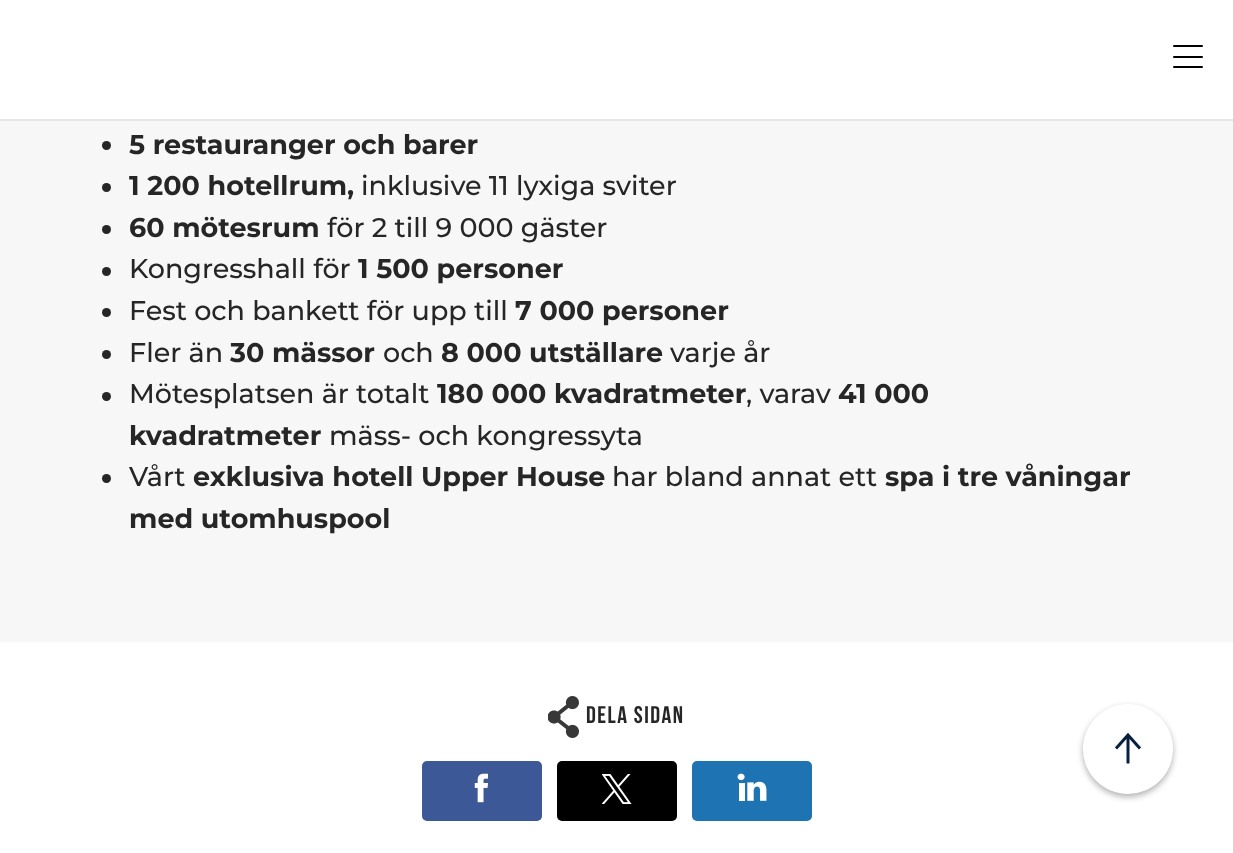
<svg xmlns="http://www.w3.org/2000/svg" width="1233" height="853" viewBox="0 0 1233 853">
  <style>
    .t1 { font: bold 27px Montserrat; fill: #262626; }
    .t2 { font: 500 27px Montserrat; fill: #262626; }
    .t3 { font: bold 24px Bebas Neue; letter-spacing: 1.5px; fill: #262626; }
  </style>
  <rect width="100%" height="100%" fill="#fff"/>
  <rect x="0" y="119" width="1233" height="2" fill="#e5e5e5"/>
  <rect x="1173" y="56" width="30" height="2" rx="1" fill="#000"/>
  <rect x="1173" y="45" width="30" height="2" rx="1" fill="#000"/>
  <rect x="1173" y="66" width="30" height="2" rx="1" fill="#000"/>
  <rect x="0" y="121" width="1233" height="521" fill="#f7f7f7"/>
  <circle cx="106.5" cy="145.5" r="4.5" fill="#262626"/>
  <text x="129" y="154" class="t1">5 restauranger och barer</text>
  <circle cx="106.5" cy="187.5" r="4.5" fill="#262626"/>
  <text x="129" y="195" class="t1">1 200 hotellrum,</text>
  <text x="361" y="195" class="t2">inklusive 11 lyxiga sviter</text>
  <circle cx="106.5" cy="229.5" r="4.5" fill="#262626"/>
  <text x="129" y="237" class="t1">60 mötesrum</text>
  <text x="327" y="237" class="t2">för 2 till 9 000 gäster</text>
  <circle cx="106.5" cy="271.5" r="4.5" fill="#262626"/>
  <text x="129" y="278" class="t2">Kongresshall för</text>
  <text x="358" y="278" class="t1">1 500 personer</text>
  <circle cx="106.5" cy="312.5" r="4.5" fill="#262626"/>
  <text x="129" y="320" class="t2">Fest och bankett för upp till</text>
  <text x="515" y="320" class="t1">7 000 personer</text>
  <circle cx="106.5" cy="354.5" r="4.5" fill="#262626"/>
  <text x="129" y="362" class="t2">Fler än</text>
  <text x="230" y="362" class="t1">30 mässor</text>
  <text x="383" y="362" class="t2">och</text>
  <text x="441" y="362" class="t1">8 000 utställare</text>
  <text x="670" y="362" class="t2">varje år</text>
  <circle cx="106.5" cy="396.5" r="4.5" fill="#262626"/>
  <text x="129" y="403" class="t2">Mötesplatsen är totalt</text>
  <text x="437" y="403" class="t1">180 000 kvadratmeter</text>
  <text x="746" y="403" class="t2">, varav</text>
  <text x="838" y="403" class="t1">41 000</text>
  <text x="129" y="445" class="t1">kvadratmeter</text>
  <text x="329" y="445" class="t2">mäss- och kongressyta</text>
  <circle cx="106.5" cy="478.5" r="4.5" fill="#262626"/>
  <text x="129" y="486" class="t2">Vårt</text>
  <text x="193" y="486" class="t1">exklusiva hotell Upper House</text>
  <text x="612" y="486" class="t2">har bland annat ett</text>
  <text x="885" y="486" class="t1">spa i tre våningar</text>
  <text x="129" y="528" class="t1">med utomhuspool</text>
  <image x="548" y="696" width="31" height="42" href="images/1.png"/>
  <text x="586" y="723" class="t3">Dela sidan</text>
  <rect x="422" y="761" width="120" height="60" rx="5" fill="#3d5897"/>
  <image x="474" y="773" width="15" height="30" href="images/2.png"/>
  <rect x="557" y="761" width="120" height="60" rx="5" fill="#000"/>
  <image x="602" y="774" width="30" height="30" href="images/3.png"/>
  <rect x="692" y="761" width="120" height="60" rx="5" fill="#1e74b2"/>
  <image x="737" y="773" width="30" height="28" href="images/4.png"/>
  <rect x="1083" y="707" width="90" height="90" rx="45" fill="#0000004d" filter="blur(3px)"/>
  <circle cx="1128" cy="749" r="45" fill="#fff"/>
  <path d="M1116 748.5L1128 735L1140 748.5M1128 735V763.5" fill="none" stroke="#091f3e" stroke-width="3"/>
</svg>
